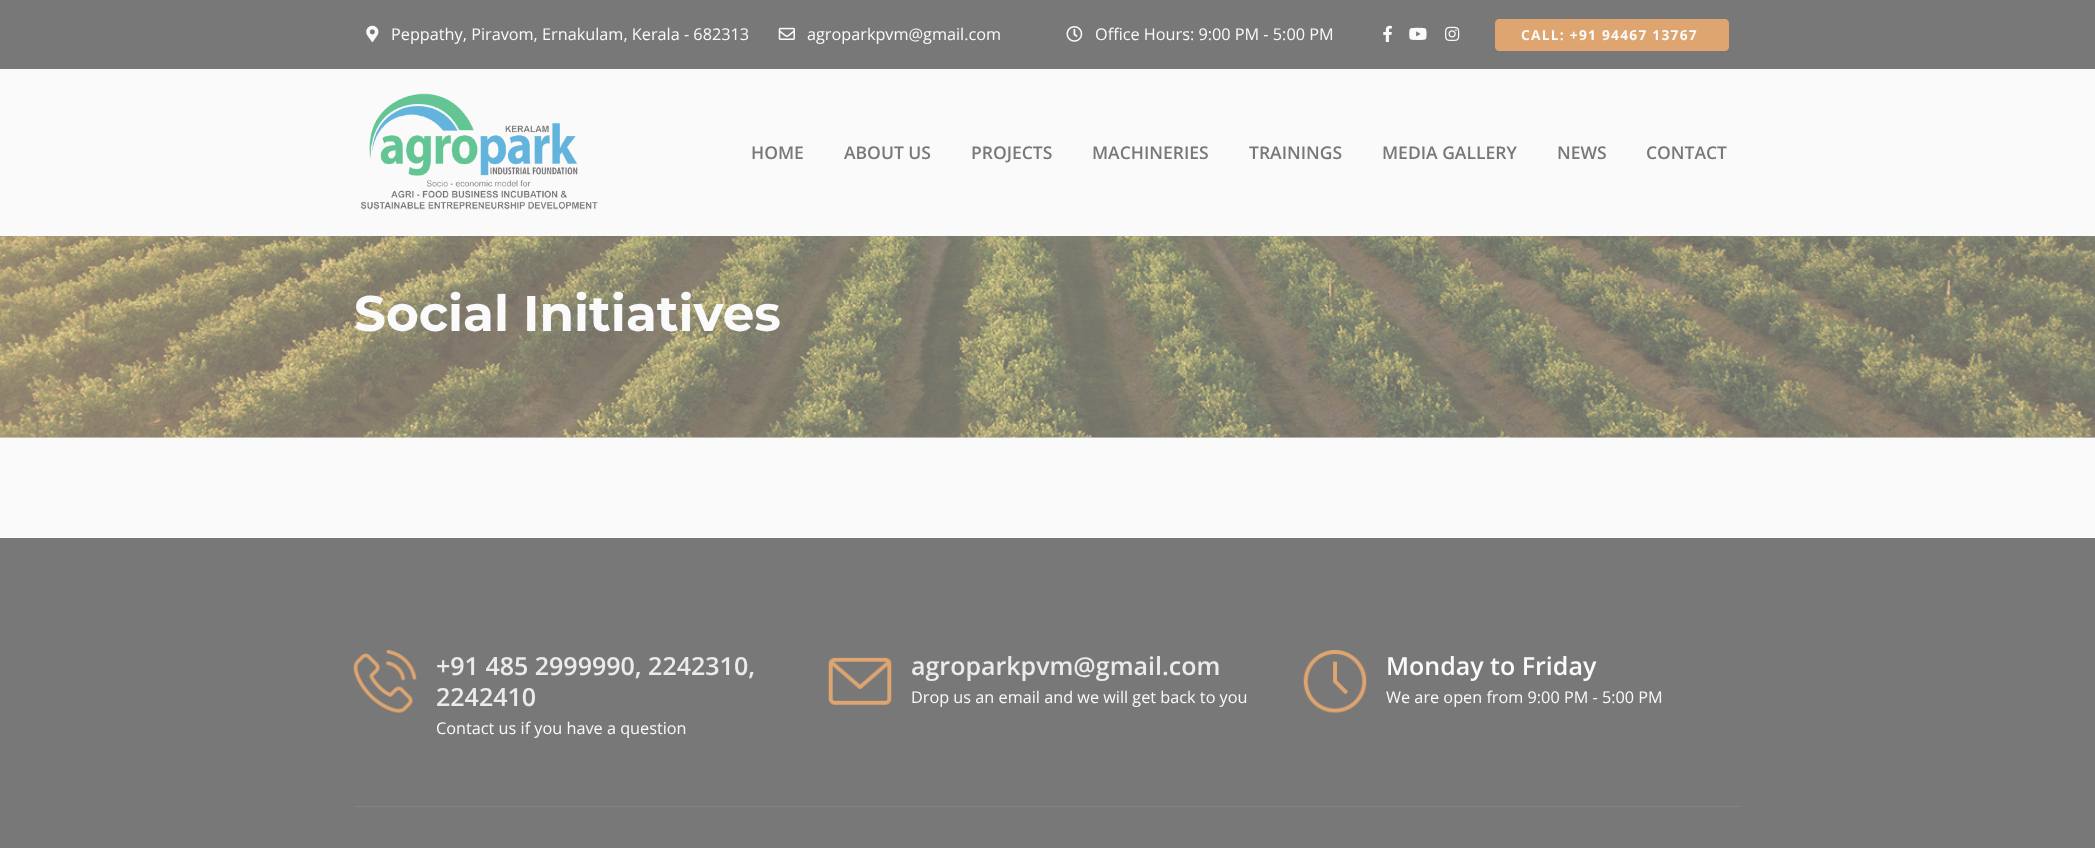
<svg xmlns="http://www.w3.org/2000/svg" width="2095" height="848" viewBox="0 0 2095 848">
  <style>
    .t1 { font: 16.25px Open Sans; fill: #fafafa; }
    .t2 { font: bold 13.75px Open Sans; letter-spacing: 1.25px; fill: #fafafa; }
    .t3 { font: 600 17.5px Open Sans; fill: #787878; }
    .t4 { font: bold 50px Montserrat; fill: #fafafa; }
    .t5 { font: 600 25px Open Sans; fill: #ebebeb; }
    .t6 { font: 600 25px Open Sans; fill: #fafafa; }
  </style>
  <rect width="100%" height="100%" fill="#fafafa"/>
  <rect x="0" y="437" width="2095" height="1" fill="#ededed"/>
  <rect x="0" y="0" width="2095" height="69" fill="#787878"/>
  <image x="366" y="25" width="13" height="17" href="images/1.png"/>
  <text x="391" y="40" class="t1">Peppathy, Piravom, Ernakulam, Kerala - 682313</text>
  <image x="778" y="27" width="17" height="13" href="images/2.png"/>
  <text x="807" y="40" class="t1">agroparkpvm@gmail.com</text>
  <image x="1066" y="26" width="17" height="16" href="images/3.png"/>
  <text x="1095" y="40" class="t1">Office Hours: 9:00 PM - 5:00 PM</text>
  <image x="1383" y="25" width="9" height="17" href="images/4.png"/>
  <image x="1409" y="27" width="18" height="13" href="images/5.png"/>
  <image x="1445" y="26" width="15" height="15" href="images/6.png"/>
  <rect x="1495.5" y="19.5" width="233" height="31" rx="3.5" fill="#dea570" stroke="#dea570"/>
  <text x="1521" y="40" class="t2">CALL: +91 94467 13767</text>
  <image x="360" y="93" width="238" height="117" href="images/7.png"/>
  <text x="751" y="159" class="t3">HOME</text>
  <text x="844" y="159" class="t3">ABOUT US</text>
  <text x="971" y="159" class="t3">PROJECTS</text>
  <text x="1092" y="159" class="t3">MACHINERIES</text>
  <text x="1249" y="159" class="t3">TRAININGS</text>
  <text x="1382" y="159" class="t3">MEDIA GALLERY</text>
  <text x="1557" y="159" class="t3">NEWS</text>
  <text x="1646" y="159" class="t3">CONTACT</text>
  <image x="0" y="236" width="2095" height="202" href="images/8.png"/>
  <text x="354" y="331" class="t4">Social Initiatives</text>
  <rect x="0" y="538" width="2095" height="310" fill="#787878"/>
  <image x="353" y="650" width="64" height="63" href="images/9.png"/>
  <text x="436" y="675" class="t5">+91 485 2999990, 2242310,</text>
  <text x="436" y="706" class="t5">2242410</text>
  <text x="436" y="734" class="t1">Contact us if you have a question</text>
  <image x="828" y="657" width="64" height="48" href="images/10.png"/>
  <text x="911" y="675" class="t5">agroparkpvm@gmail.com</text>
  <text x="911" y="703" class="t1">Drop us an email and we will get back to you</text>
  <image x="1303" y="650" width="64" height="63" href="images/11.png"/>
  <text x="1386" y="675" class="t6">Monday to Friday</text>
  <text x="1386" y="703" class="t1">We are open from 9:00 PM - 5:00 PM</text>
  <rect x="354" y="806" width="1387" height="1" fill="#828282"/>
</svg>
